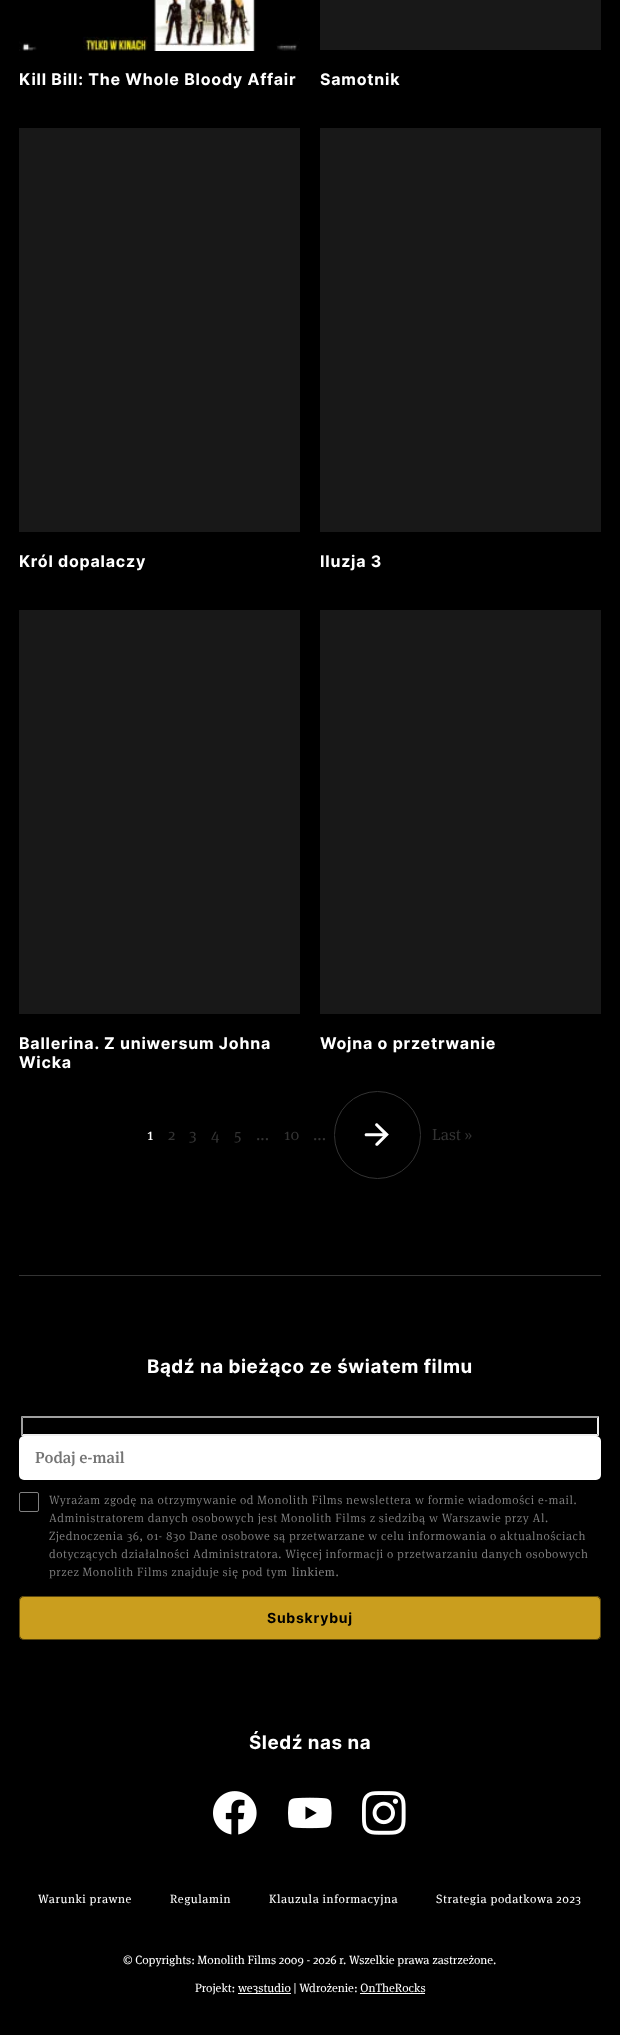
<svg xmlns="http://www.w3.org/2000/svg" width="620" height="2035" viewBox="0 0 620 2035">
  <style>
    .t1 { font: bold 16px Inter; letter-spacing: 0.8px; fill: #fff; }
    .t2 { font: 16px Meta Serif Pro; fill: #fff; }
    .t3 { font: 16px Meta Serif Pro; fill: #333; }
    .t4 { font: bold 18.75px Inter; letter-spacing: 0.55px; fill: #fff; }
    .t5 { font: 500 16px Meta Serif Pro; fill: #757575; }
    .t6 { font: 300 12px Meta Serif Pro; letter-spacing: 0.55px; fill: #808080; }
    .t7 { font: 12px Meta Serif Pro; letter-spacing: 0.55px; fill: #808080; }
    .t8 { font: bold 14px Inter; letter-spacing: 0.75px; fill: #000; }
    .t9 { font: 12px Meta Serif Pro; letter-spacing: 0.55px; fill: #fff; }
    .t10 { font: 12px Meta Serif Pro; fill: #fff; }
  </style>
  <rect width="100%" height="100%" fill="#000"/>
  <image x="19" y="0" width="281" height="51" href="images/1.png"/>
  <text x="19" y="85" class="t1">Kill Bill: The Whole Bloody Affair</text>
  <rect x="320" y="0" width="281" height="50" fill="#181818"/>
  <text x="320" y="85" class="t1">Samotnik</text>
  <rect x="19" y="128" width="281" height="404" fill="#181818"/>
  <text x="19" y="567" class="t1">Król dopalaczy</text>
  <rect x="320" y="128" width="281" height="404" fill="#181818"/>
  <text x="320" y="567" class="t1">Iluzja 3</text>
  <rect x="19" y="610" width="281" height="404" fill="#181818"/>
  <text x="19" y="1049" class="t1">Ballerina. Z uniwersum Johna</text>
  <text x="19" y="1068" class="t1">Wicka</text>
  <rect x="320" y="610" width="281" height="404" fill="#181818"/>
  <text x="320" y="1049" class="t1">Wojna o przetrwanie</text>
  <text x="147" y="1140" class="t2">1</text>
  <text x="168" y="1140" class="t3">2</text>
  <text x="189" y="1140" class="t3">3</text>
  <text x="211" y="1140" class="t3">4</text>
  <text x="234" y="1140" class="t3">5</text>
  <text x="256" y="1140" class="t3">...</text>
  <text x="284" y="1140" class="t3">10</text>
  <text x="313" y="1140" class="t3">...</text>
  <image x="364" y="1123" width="25" height="23" href="images/2.png"/>
  <rect x="334.5" y="1091.5" width="86" height="87" rx="43" fill="none" stroke="#333"/>
  <text x="432" y="1140" class="t3">Last »</text>
  <rect x="19" y="1275" width="582" height="1" fill="#333"/>
  <text x="147" y="1373" class="t4">Bądź na bieżąco ze światem filmu</text>
  <path d="M21 1416H599L597 1418H23Z" fill="#9f9f9f"/>
  <path d="M599 1416V1436L597 1434V1418Z" fill="#efefef"/>
  <path d="M599 1436H21L23 1434H597Z" fill="#efefef"/>
  <path d="M21 1436V1416L23 1418V1434Z" fill="#9f9f9f"/>
  <rect x="19" y="1436" width="582" height="44" rx="5" fill="#fff"/>
  <text x="35" y="1463" class="t5">Podaj e-mail</text>
  <rect x="19.5" y="1492.5" width="19" height="19" rx="1.5" fill="none" stroke="#808080"/>
  <text x="49" y="1504" class="t6">Wyrażam zgodę na otrzymywanie od Monolith Films newslettera w formie wiadomości e-mail.</text>
  <text x="49" y="1522" class="t6">Administratorem danych osobowych jest Monolith Films z siedzibą w Warszawie przy Al.</text>
  <text x="49" y="1540" class="t6">Zjednoczenia 36, 01- 830 Dane osobowe są przetwarzane w celu informowania o aktualnościach</text>
  <text x="49" y="1558" class="t6">dotyczących działalności Administratora. Więcej informacji o przetwarzaniu danych osobowych</text>
  <text x="49" y="1576" class="t6">przez Monolith Films znajduje się pod tym</text>
  <text x="292" y="1576" class="t7">linkiem.</text>
  <rect x="19" y="1596" width="582" height="44" rx="5" fill="#ca9e1e"/>
  <rect x="19.5" y="1596.5" width="581" height="43" rx="4.5" fill="none" stroke="#0000008c"/>
  <text x="267" y="1623" class="t8">Subskrybuj</text>
  <text x="249" y="1749" class="t4">Śledź nas na</text>
  <image x="213" y="1791" width="44" height="44" href="images/3.png"/>
  <image x="288" y="1797" width="44" height="32" href="images/4.png"/>
  <image x="362" y="1791" width="44" height="44" href="images/5.png"/>
  <text x="38" y="1903" class="t9">Warunki prawne</text>
  <text x="170" y="1903" class="t9">Regulamin</text>
  <text x="269" y="1903" class="t9">Klauzula informacyjna</text>
  <text x="436" y="1903" class="t9">Strategia podatkowa 2023</text>
  <text x="123" y="1964" class="t10">© Copyrights: Monolith Films 2009 - 2026 r. Wszelkie prawa zastrzeżone.</text>
  <text x="195" y="1992" class="t10">Projekt:</text>
  <rect x="238" y="1993" width="53" height="1" fill="#fff"/>
  <text x="238" y="1992" class="t10">we3studio | Wdrożenie: OnTheRocks</text>
  <rect x="360" y="1993" width="65" height="1" fill="#fff"/>
</svg>
